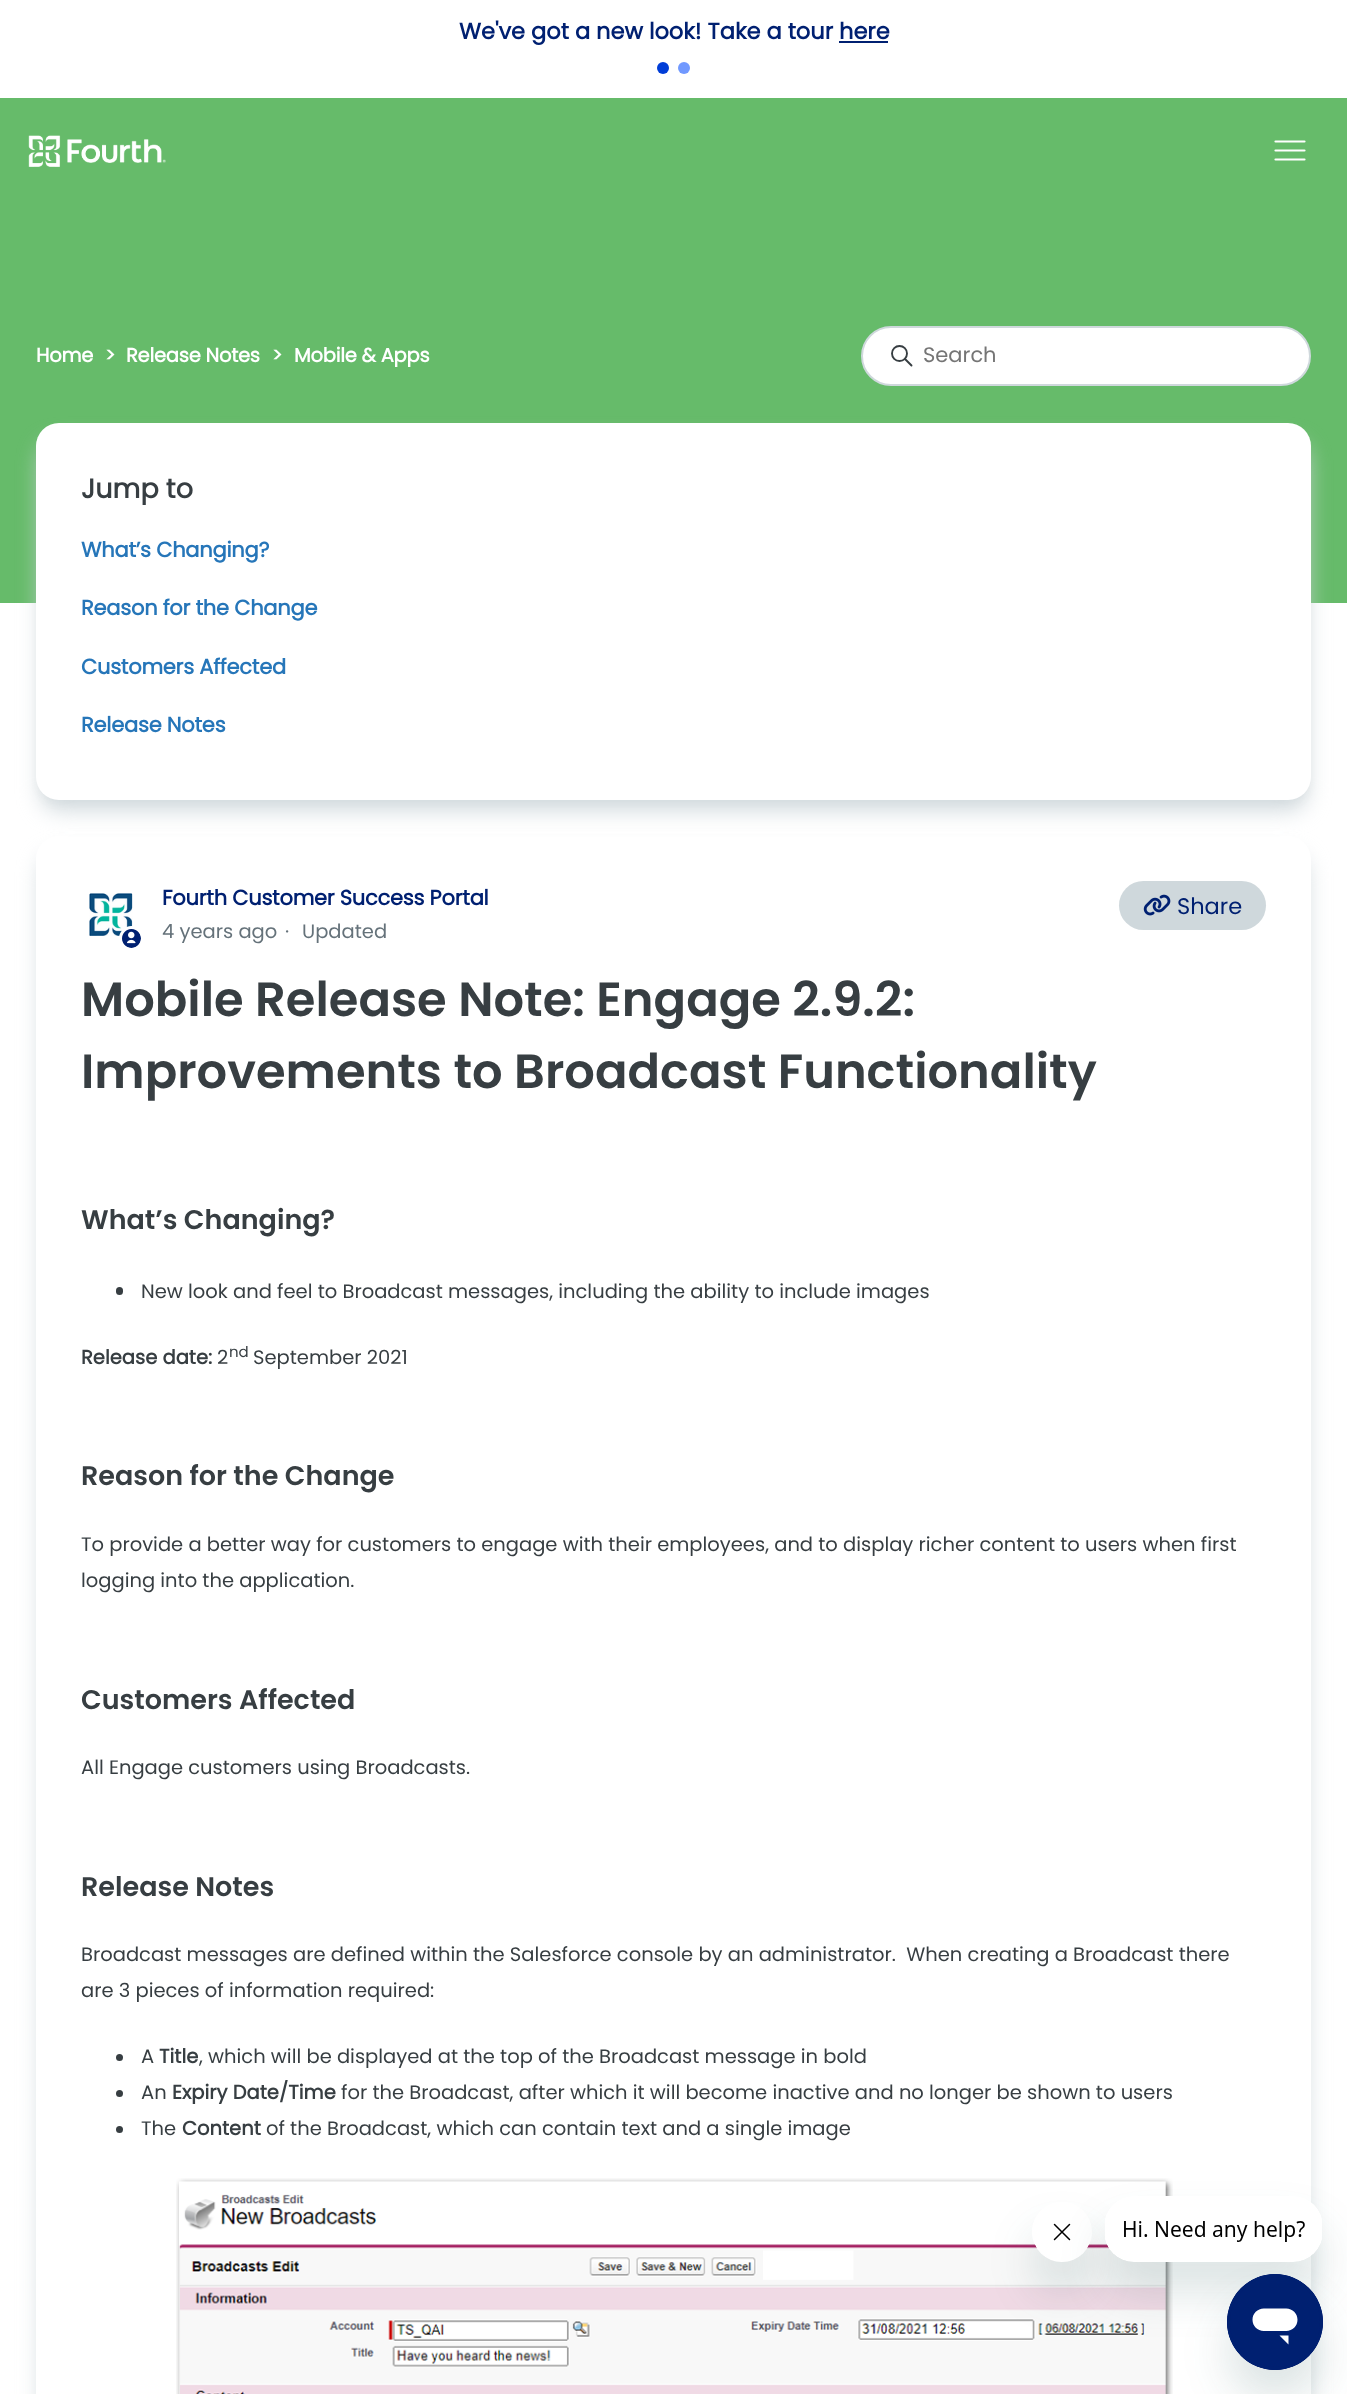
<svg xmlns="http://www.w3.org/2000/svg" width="1347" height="2394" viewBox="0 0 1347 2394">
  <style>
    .t1 { font: bold 22.5px Poppins; fill: #002071; }
    .t2 { font: bold 19.5px Poppins; letter-spacing: -0.25px; fill: #fff; }
    .t3 { font: bold 19.5px Poppins; fill: #fff; }
    .t4 { font: 21px Poppins; fill: #757575; }
    .t5 { font: bold 27px Poppins; fill: #373e42; }
    .t6 { font: bold 21px Poppins; letter-spacing: -0.25px; fill: #2676b9; }
    .t7 { font: bold 21px Poppins; letter-spacing: -0.25px; fill: #002071; }
    .t8 { font: 19.5px Poppins; fill: #65727a; }
    .t9 { font: 22.5px Poppins; fill: #002071; }
    .t10 { font: 600 48px Poppins; fill: #373e42; }
    .t11 { font: 600 27px Poppins; fill: #373e42; }
    .t12 { font: 19.5px Poppins; fill: #373e42; }
    .t13 { font: bold 19.5px Poppins; fill: #373e42; }
    .t14 { font: 15px Poppins; fill: #373e42; }
  </style>
  <defs>
    <clipPath id="clip1"><path d="M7 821H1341V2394H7ZM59 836H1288C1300.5 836 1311 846.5 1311 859V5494C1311 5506.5 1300.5 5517 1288 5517H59C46.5 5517 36 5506.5 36 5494V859C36 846.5 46.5 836 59 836Z" clip-rule="evenodd"/></clipPath>
    <clipPath id="clip2"><path d="M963 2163H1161V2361H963ZM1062 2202C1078.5 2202 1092 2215.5 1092 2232C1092 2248.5 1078.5 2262 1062 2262C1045.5 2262 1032 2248.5 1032 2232C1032 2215.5 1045.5 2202 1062 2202Z" clip-rule="evenodd"/></clipPath>
  </defs>
  <rect width="100%" height="100%" fill="#fff"/>
  <text x="459" y="39" class="t1">We've got a new look! Take a tour</text>
  <text x="839" y="39" class="t1">here</text>
  <rect x="839" y="41" width="49" height="2" fill="#002071"/>
  <circle cx="663" cy="68" r="6" fill="#003dd7"/>
  <circle cx="684" cy="68" r="6" fill="#7199ff"/>
  <rect x="0" y="98" width="1347" height="505" fill="#66bb6a"/>
  <image x="28" y="135" width="138" height="32" href="images/1.png"/>
  <path d="M1275.5 141.5H1304.5M1275.5 150.5H1304.5M1275.5 159.5H1304.5" fill="none" stroke="#fff" stroke-width="2.2" stroke-linecap="round"/>
  <text x="36" y="362" class="t2">Home</text>
  <text x="105" y="362" class="t3">&gt;</text>
  <text x="126" y="362" class="t2">Release Notes</text>
  <text x="272" y="362" class="t3">&gt;</text>
  <text x="294" y="362" class="t2">Mobile &amp; Apps</text>
  <rect x="862" y="327" width="448" height="58" rx="29" fill="#fff" stroke="#cfd8dc" stroke-width="2"/>
  <circle cx="899.5" cy="353.5" r="7.5" fill="none" stroke="#373e42" stroke-width="1.9"/>
  <path d="M911.5 365.5L905 359" fill="none" stroke="#373e42" stroke-width="1.9" stroke-linecap="round"/>
  <text x="923" y="362" class="t4">Search</text>
  <rect x="39" y="432" width="1269" height="371" rx="20" fill="#0000000d" filter="blur(4.5px)"/>
  <rect x="41" y="443" width="1266" height="367" rx="18" fill="#cfd8dc" filter="blur(11px)"/>
  <rect x="36" y="423" width="1275" height="377" rx="23" fill="#fff"/>
  <text x="81" y="498" class="t5">Jump to</text>
  <text x="81" y="557" class="t6">What’s Changing?</text>
  <text x="81" y="615" class="t6">Reason for the Change</text>
  <text x="81" y="674" class="t6">Customers Affected</text>
  <text x="81" y="732" class="t6">Release Notes</text>
  <g clip-path="url(#clip1)">
    <rect x="41" y="855" width="1266" height="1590" rx="18" fill="#cfd8dc" filter="blur(11px)"/>
  </g>
  <image x="89" y="893" width="44" height="43" href="images/2.png"/>
  <circle cx="131.5" cy="938.5" r="11" fill="#fff" stroke="#fff" stroke-width="3"/>
  <image x="122" y="929" width="19" height="19" href="images/3.png"/>
  <text x="162" y="905" class="t7">Fourth Customer Success Portal</text>
  <text x="162" y="938" class="t8">4 years ago</text>
  <text x="285" y="938" class="t8">·</text>
  <text x="302" y="938" class="t8">Updated</text>
  <rect x="1119" y="881" width="147" height="49" rx="24.5" fill="#cfd8dc"/>
  <image x="1143" y="894" width="28" height="22" href="images/4.png"/>
  <text x="1177" y="914" class="t9">Share</text>
  <text x="81" y="1016" class="t10">Mobile Release Note: Engage 2.9.2:</text>
  <text x="81" y="1088" class="t10">Improvements to Broadcast Functionality</text>
  <text x="81" y="1229" class="t11">What’s Changing?</text>
  <rect x="116" y="1287" width="7" height="8" rx="3.5" fill="#373e42"/>
  <text x="141" y="1298" class="t12">New look and feel to Broadcast messages, including the ability to include images</text>
  <text x="81" y="1364" class="t13">Release date:</text>
  <text x="217" y="1364" class="t12">2</text>
  <text x="229" y="1357" class="t14">nd</text>
  <text x="253" y="1364" class="t12">September 2021</text>
  <text x="81" y="1485" class="t11">Reason for the Change</text>
  <text x="81" y="1551" class="t12">To provide a better way for customers to engage with their employees, and to display richer content to users when first</text>
  <text x="81" y="1587" class="t12">logging into the application.</text>
  <text x="81" y="1709" class="t11">Customers Affected</text>
  <text x="81" y="1774" class="t12">All Engage customers using Broadcasts.</text>
  <text x="81" y="1896" class="t11">Release Notes</text>
  <text x="81" y="1961" class="t12" xml:space="preserve">Broadcast messages are defined within the Salesforce console by an administrator.  When creating a Broadcast there</text>
  <text x="81" y="1997" class="t12">are 3 pieces of information required:</text>
  <circle cx="119.5" cy="2057.5" r="3.5" fill="#373e42"/>
  <text x="141" y="2063" class="t12">A</text>
  <text x="159" y="2063" class="t13">Title</text>
  <text x="199" y="2063" class="t12">, which will be displayed at the top of the Broadcast message in bold</text>
  <circle cx="119.5" cy="2093.5" r="3.5" fill="#373e42"/>
  <text x="141" y="2099" class="t12">An</text>
  <text x="172" y="2099" class="t13">Expiry Date/Time</text>
  <text x="341" y="2099" class="t12">for the Broadcast, after which it will become inactive and no longer be shown to users</text>
  <circle cx="119.5" cy="2129.5" r="3.5" fill="#373e42"/>
  <text x="141" y="2135" class="t12">The</text>
  <text x="182" y="2135" class="t13">Content</text>
  <text x="266" y="2135" class="t12">of the Broadcast, which can contain text and a single image</text>
  <image x="176" y="2178" width="997" height="216" href="images/5.png"/>
  <g clip-path="url(#clip2)">
    <rect x="1032" y="2232" width="60" height="60" rx="30" fill="#17494d26" filter="blur(22.5px)"/>
  </g>
  <image x="1035" y="2223" width="54" height="39" href="images/7.png"/>
  <rect x="1104" y="2226" width="219" height="66" rx="30" fill="#17494d26" filter="blur(22.5px)"/>
  <image x="1105" y="2196" width="217" height="66" href="images/6.png"/>
  <rect x="1227" y="2304" width="96" height="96" rx="48" fill="#17494d26" filter="blur(22.5px)"/>
  <image x="1227" y="2274" width="96" height="96" href="images/8.png"/>
</svg>
